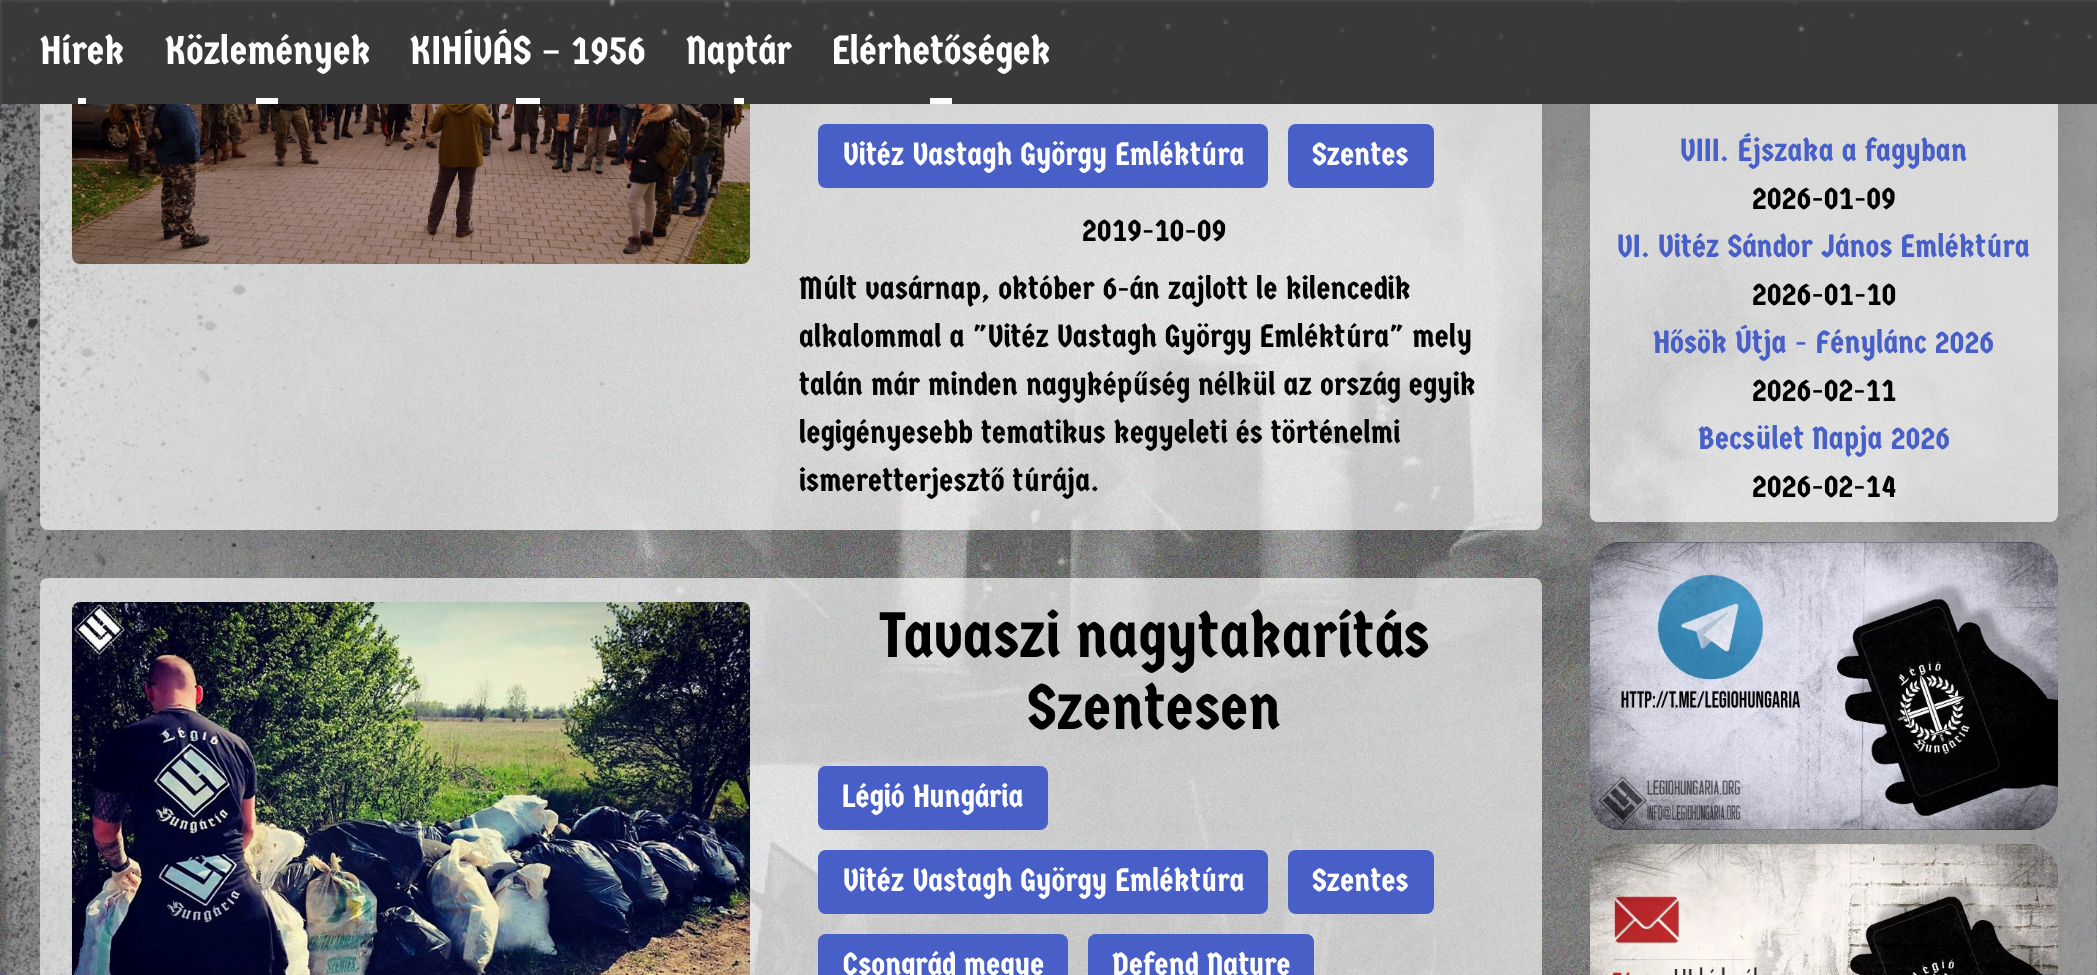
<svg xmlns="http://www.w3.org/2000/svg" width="2097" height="975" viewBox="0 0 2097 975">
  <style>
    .t1 { font: 40px Germania One; fill: #fff; }
    .t2 { font: 32px Germania One; fill: #fff; }
    .t3 { font: 32px Germania One; fill: #000; }
    .t4 { font: 64px Germania One; fill: #000; }
    .t5 { font: 32px Germania One; fill: #485fc7; }
  </style>
  <defs>
    <clipPath id="clip1"><path d="M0 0H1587V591H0ZM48-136H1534C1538.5-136 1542-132.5 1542-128V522C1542 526.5 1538.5 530 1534 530H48C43.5 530 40 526.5 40 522V-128C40-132.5 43.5-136 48-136Z" clip-rule="evenodd"/></clipPath>
    <clipPath id="clip2"><path d="M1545 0H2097V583H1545ZM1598-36H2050C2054.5-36 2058-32.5 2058-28V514C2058 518.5 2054.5 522 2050 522H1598C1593.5 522 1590 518.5 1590 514V-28C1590-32.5 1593.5-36 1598-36Z" clip-rule="evenodd"/></clipPath>
  </defs>
  <rect width="100%" height="100%" fill="#fff"/>
  <image x="0" y="104" width="2097" height="871" href="images/1.png"/>
  <g clip-path="url(#clip1)">
    <rect x="44" y="-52" width="1494" height="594" rx="4" fill="#0a0a0a1a" filter="blur(16px)"/>
  </g>
  <rect x="40" y="-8" width="1502" height="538" rx="8" fill="#ffffffa3"/>
  <image x="1590" y="542" width="468" height="288" href="images/5.png"/>
  <g clip-path="url(#clip2)">
    <rect x="1594" y="-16" width="460" height="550" rx="4" fill="#0a0a0a1a" filter="blur(16px)"/>
  </g>
  <rect x="1590" y="-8" width="468" height="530" rx="8" fill="#ffffffa3"/>
  <rect x="24" y="0" width="2050" height="104" fill="#fff"/>
  <image x="0" y="0" width="2097" height="104" href="images/2.png"/>
  <rect x="78" y="98" width="8" height="6" fill="#fff"/>
  <text x="40" y="64" class="t1">Hírek</text>
  <rect x="256" y="98" width="22" height="6" fill="#fff"/>
  <text x="165" y="64" class="t1">Közlemények</text>
  <rect x="516" y="98" width="24" height="6" fill="#fff"/>
  <text x="410" y="64" class="t1">KIHÍVÁS – 1956</text>
  <rect x="734" y="98" width="10" height="6" fill="#fff"/>
  <text x="686" y="64" class="t1">Naptár</text>
  <rect x="930" y="98" width="22" height="6" fill="#fff"/>
  <text x="832" y="64" class="t1">Elérhetőségek</text>
  <image x="72" y="104" width="678" height="160" href="images/3.png"/>
  <rect x="818" y="124" width="450" height="64" rx="8" fill="#485fc7"/>
  <text x="843" y="165" class="t2">Vitéz Vastagh György Emléktúra</text>
  <rect x="1288" y="124" width="146" height="64" rx="8" fill="#485fc7"/>
  <text x="1312" y="165" class="t2">Szentes</text>
  <text x="1082" y="241" class="t3">2019-10-09</text>
  <text x="799" y="299" class="t3">Múlt vasárnap, október 6-án zajlott le kilencedik</text>
  <text x="799" y="347" class="t3">alkalommal a "Vitéz Vastagh György Emléktúra" mely</text>
  <text x="799" y="395" class="t3">talán már minden nagyképűség nélkül az ország egyik</text>
  <text x="799" y="443" class="t3">legigényesebb tematikus kegyeleti és történelmi</text>
  <text x="799" y="491" class="t3">ismeretterjesztő túrája.</text>
  <rect x="40" y="578" width="1502" height="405" rx="8" fill="#ffffffa3"/>
  <image x="72" y="602" width="678" height="373" href="images/4.png"/>
  <text x="879" y="657" class="t4">Tavaszi nagytakarítás</text>
  <text x="1027" y="729" class="t4">Szentesen</text>
  <rect x="818" y="766" width="230" height="64" rx="8" fill="#485fc7"/>
  <text x="843" y="807" class="t2">Légió Hungária</text>
  <rect x="818" y="850" width="450" height="64" rx="8" fill="#485fc7"/>
  <text x="843" y="891" class="t2">Vitéz Vastagh György Emléktúra</text>
  <rect x="1288" y="850" width="146" height="64" rx="8" fill="#485fc7"/>
  <text x="1312" y="891" class="t2">Szentes</text>
  <rect x="818" y="934" width="250" height="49" rx="8" fill="#485fc7"/>
  <text x="843" y="975" class="t2">Csongrád megye</text>
  <rect x="1088" y="934" width="226" height="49" rx="8" fill="#485fc7"/>
  <text x="1112" y="975" class="t2">Defend Nature</text>
  <text x="1680" y="161" class="t5">VIII. Éjszaka a fagyban</text>
  <text x="1752" y="209" class="t3">2026-01-09</text>
  <text x="1617" y="257" class="t5">VI. Vitéz Sándor János Emléktúra</text>
  <text x="1752" y="305" class="t3">2026-01-10</text>
  <text x="1653" y="353" class="t5">Hősök Útja - Fénylánc 2026</text>
  <text x="1752" y="401" class="t3">2026-02-11</text>
  <text x="1698" y="449" class="t5">Becsület Napja 2026</text>
  <text x="1752" y="497" class="t3">2026-02-14</text>
  <image x="1590" y="844" width="468" height="131" href="images/6.png"/>
</svg>
